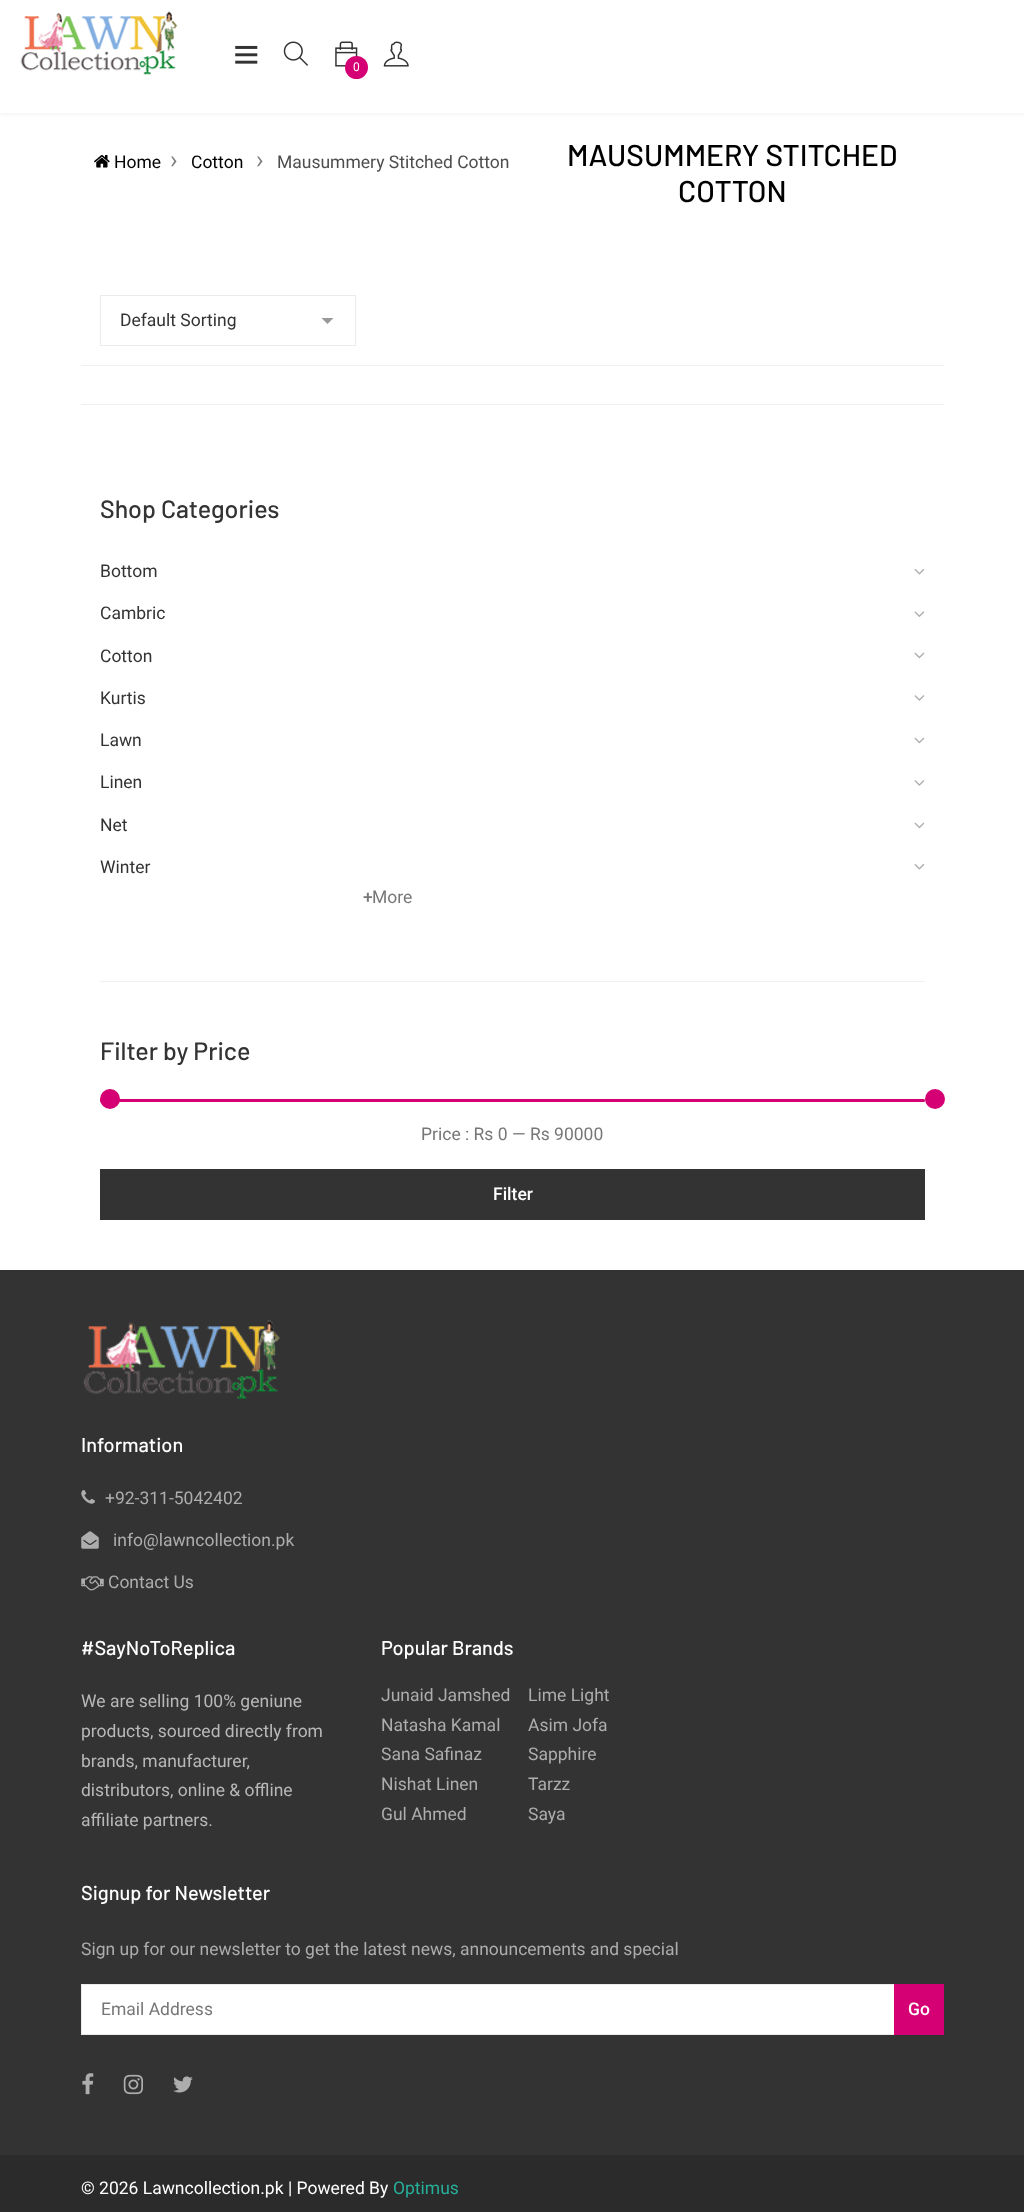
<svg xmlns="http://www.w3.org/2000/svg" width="1024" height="2212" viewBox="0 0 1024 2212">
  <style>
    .t1 { font: 12px Roboto; fill: #fff; }
    .t2 { font: 17.5px Roboto; fill: #000; }
    .t3 { font: 25px Roboto; fill: #808080; }
    .t4 { font: 17.5px Roboto; fill: #4d4d4d; }
    .t5 { font: 500 30px Barlow; fill: #000; }
    .t6 { font: 17.5px Roboto; fill: #333; }
    .t7 { font: 500 25px Barlow; fill: #333; }
    .t8 { font: 500 17.5px Roboto; fill: #777; }
    .t9 { font: 17.5px Roboto; fill: #777; }
    .t10 { font: 500 17.5px Roboto; fill: #fff; }
    .t11 { font: 500 20px Barlow; fill: #fff; }
    .t12 { font: 17.5px Roboto; fill: #adadad; }
    .t13 { font: 17.5px Roboto; fill: #b8b8b8; }
    .t14 { font: 17.5px Roboto; fill: #fff; }
    .t15 { font: 17.5px Roboto; fill: #27af9a; }
  </style>
  <defs>
    <clipPath id="clip1"><rect x="321" y="318" width="15" height="7"/></clipPath>
  </defs>
  <rect width="100%" height="100%" fill="#fff"/>
  <rect x="0" y="1" width="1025" height="113" fill="#0000000f" filter="blur(2px)"/>
  <rect x="0" y="0" width="1024" height="113" fill="#fff"/>
  <image x="20" y="11" width="158" height="64" href="images/1.png"/>
  <image x="235" y="45" width="23" height="19" href="images/2.png"/>
  <image x="283" y="41" width="26" height="25" href="images/3.png"/>
  <image x="383" y="41" width="26" height="26" href="images/4.png"/>
  <image x="335" y="41" width="23" height="26" href="images/5.png"/>
  <circle cx="356.5" cy="67.5" r="11.5" fill="#d50073"/>
  <text x="353" y="71" class="t1">0</text>
  <image x="94" y="155" width="16" height="13" href="images/6.png"/>
  <text x="114" y="168" class="t2">Home</text>
  <text x="170" y="168" class="t3">›</text>
  <text x="191" y="168" class="t2">Cotton</text>
  <text x="256" y="168" class="t3">›</text>
  <text x="277" y="168" class="t4">Mausummery Stitched Cotton</text>
  <text x="567" y="166" class="t5">MAUSUMMERY STITCHED</text>
  <text x="678" y="202" class="t5">COTTON</text>
  <rect x="81" y="365" width="863" height="1" fill="#f0f0f0"/>
  <g clip-path="url(#clip1)">
    <path d="M334 317.5L327.5 324L321 317.5Z" fill="#999"/>
  </g>
  <rect x="100.5" y="295.5" width="255" height="50" fill="none" stroke="#ebebeb"/>
  <text x="120" y="326" class="t6">Default Sorting</text>
  <rect x="81" y="404" width="863" height="1" fill="#f0f0f0"/>
  <rect x="100" y="981" width="825" height="1" fill="#f0f0f0"/>
  <text x="100" y="518" class="t7">Shop Categories</text>
  <text x="100" y="577" class="t6">Bottom</text>
  <image x="914" y="569" width="11" height="6" href="images/7.png"/>
  <text x="100" y="619" class="t6">Cambric</text>
  <image x="914" y="611" width="11" height="6" href="images/8.png"/>
  <text x="100" y="662" class="t6">Cotton</text>
  <image x="914" y="652" width="11" height="7" href="images/9.png"/>
  <text x="100" y="704" class="t6">Kurtis</text>
  <image x="914" y="695" width="11" height="6" href="images/10.png"/>
  <text x="100" y="746" class="t6">Lawn</text>
  <image x="914" y="737" width="11" height="7" href="images/9.png"/>
  <text x="100" y="788" class="t6">Linen</text>
  <image x="914" y="780" width="11" height="6" href="images/10.png"/>
  <text x="100" y="831" class="t6">Net</text>
  <image x="914" y="822" width="11" height="7" href="images/9.png"/>
  <text x="100" y="873" class="t6">Winter</text>
  <image x="914" y="864" width="11" height="6" href="images/7.png"/>
  <text x="363" y="903" class="t8">+</text>
  <text x="372" y="903" class="t9">More</text>
  <text x="100" y="1060" class="t7">Filter by Price</text>
  <rect x="100" y="1099" width="825" height="3" fill="#e0e0e0"/>
  <rect x="100" y="1099" width="825" height="3" rx="1.5" fill="#d50073"/>
  <circle cx="110" cy="1099" r="10" fill="#d50073"/>
  <circle cx="935" cy="1099" r="10" fill="#d50073"/>
  <text x="421" y="1140" class="t9">Price : Rs 0 — Rs 90000</text>
  <rect x="100" y="1169" width="825" height="51" fill="#333"/>
  <text x="493" y="1200" class="t10">Filter</text>
  <rect x="0" y="1270" width="1024" height="885" fill="#333"/>
  <image x="83" y="1320" width="197" height="79" href="images/11.png"/>
  <text x="81" y="1452" class="t11">Information</text>
  <image x="81" y="1490" width="14" height="14" href="images/12.png"/>
  <text x="105" y="1504" class="t12">+92-311-5042402</text>
  <image x="81" y="1531" width="18" height="18" href="images/13.png"/>
  <text x="113" y="1546" class="t12">info@lawncollection.pk</text>
  <image x="81" y="1576" width="23" height="15" href="images/14.png"/>
  <text x="108" y="1588" class="t12">Contact Us</text>
  <text x="81" y="1655" class="t11">#SayNoToReplica</text>
  <text x="81" y="1707" class="t13">We are selling 100% geniune</text>
  <text x="81" y="1737" class="t13">products, sourced directly from</text>
  <text x="81" y="1767" class="t13">brands, manufacturer,</text>
  <text x="81" y="1796" class="t13">distributors, online &amp; offline</text>
  <text x="81" y="1826" class="t13">affiliate partners.</text>
  <text x="381" y="1655" class="t11">Popular Brands</text>
  <text x="381" y="1701" class="t12">Junaid Jamshed</text>
  <text x="381" y="1731" class="t12">Natasha Kamal</text>
  <text x="381" y="1760" class="t12">Sana Safinaz</text>
  <text x="381" y="1790" class="t12">Nishat Linen</text>
  <text x="381" y="1820" class="t12">Gul Ahmed</text>
  <text x="528" y="1701" class="t12">Lime Light</text>
  <text x="528" y="1731" class="t12">Asim Jofa</text>
  <text x="528" y="1760" class="t12">Sapphire</text>
  <text x="528" y="1790" class="t12">Tarzz</text>
  <text x="528" y="1820" class="t12">Saya</text>
  <text x="81" y="1900" class="t11">Signup for Newsletter</text>
  <text x="81" y="1955" class="t12">Sign up for our newsletter to get the latest news, announcements and special</text>
  <rect x="82" y="1985" width="812" height="49" fill="#fff"/>
  <rect x="81.5" y="1984.5" width="862" height="50" fill="none" stroke="#ebebeb"/>
  <text x="101" y="2015" class="t9">Email Address</text>
  <rect x="894" y="1984" width="50" height="51" fill="#d50073"/>
  <text x="908" y="2015" class="t10">Go</text>
  <image x="82" y="2073" width="12" height="22" href="images/15.png"/>
  <image x="123" y="2074" width="20" height="21" href="images/16.png"/>
  <image x="173" y="2076" width="20" height="17" href="images/17.png"/>
  <rect x="0" y="2155" width="1024" height="57" fill="#2b2b2b"/>
  <text x="81" y="2194" class="t14">© 2026 Lawncollection.pk | Powered By</text>
  <text x="393" y="2194" class="t15">Optimus</text>
</svg>
